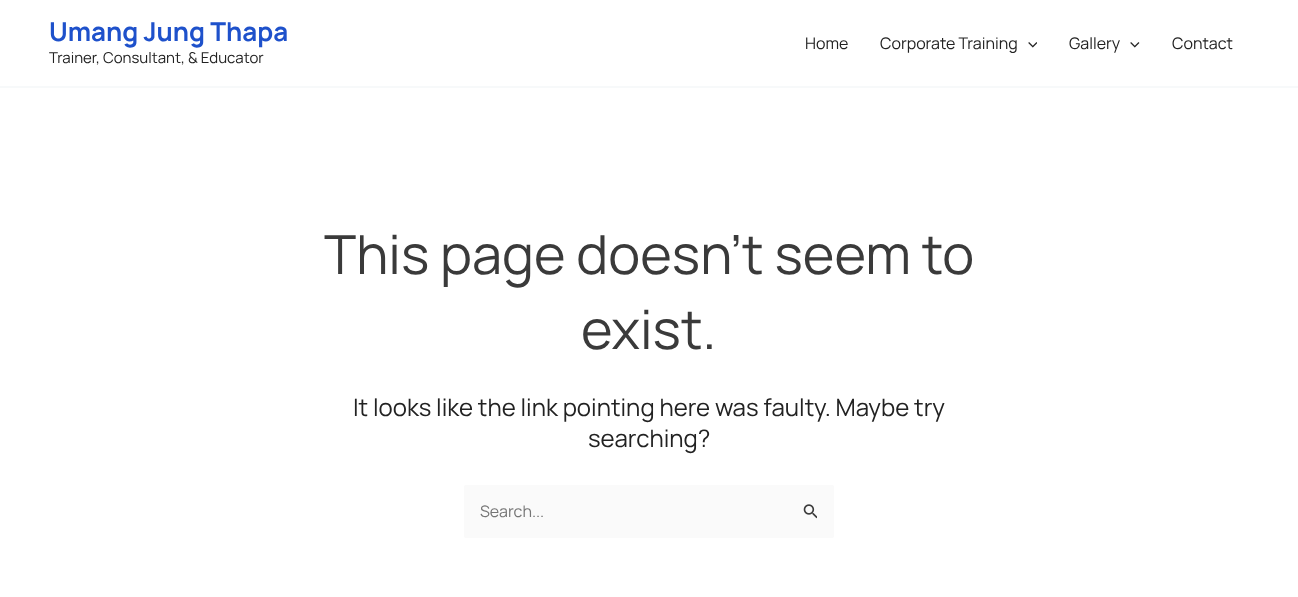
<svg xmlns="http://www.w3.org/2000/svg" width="1298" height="597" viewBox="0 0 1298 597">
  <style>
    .t1 { font: bold 26px Manrope; fill: #1e51cb; }
    .t2 { font: 15px Manrope; fill: #222; }
    .t3 { font: 16px Manrope; fill: #222; }
    .t4 { font: 54px Manrope; fill: #3a3a3a; }
    .t5 { font: 24px Manrope; fill: #222; }
    .t6 { font: 16px Manrope; fill: #757575; }
  </style>
  <rect width="100%" height="100%" fill="#fff"/>
  <rect x="0" y="86" width="1298" height="2" fill="#f7f9fa"/>
  <text x="49" y="41" class="t1">Umang Jung Thapa</text>
  <text x="49" y="63" class="t2">Trainer, Consultant, &amp; Educator</text>
  <text x="805" y="49" class="t3">Home</text>
  <text x="880" y="49" class="t3">Corporate Training</text>
  <image x="1028" y="42" width="9" height="6" href="images/1.png"/>
  <text x="1069" y="49" class="t3">Gallery</text>
  <image x="1130" y="42" width="10" height="6" href="images/2.png"/>
  <text x="1172" y="49" class="t3">Contact</text>
  <text x="324" y="274" class="t4">This page doesn't seem to</text>
  <text x="581" y="349" class="t4">exist.</text>
  <text x="353" y="416" class="t5">It looks like the link pointing here was faulty. Maybe try</text>
  <text x="588" y="447" class="t5">searching?</text>
  <rect x="464" y="485" width="370" height="53" rx="2" fill="#fafafa"/>
  <text x="480" y="517" class="t6">Search...</text>
  <image x="803" y="504" width="14" height="15" href="images/3.png"/>
</svg>
